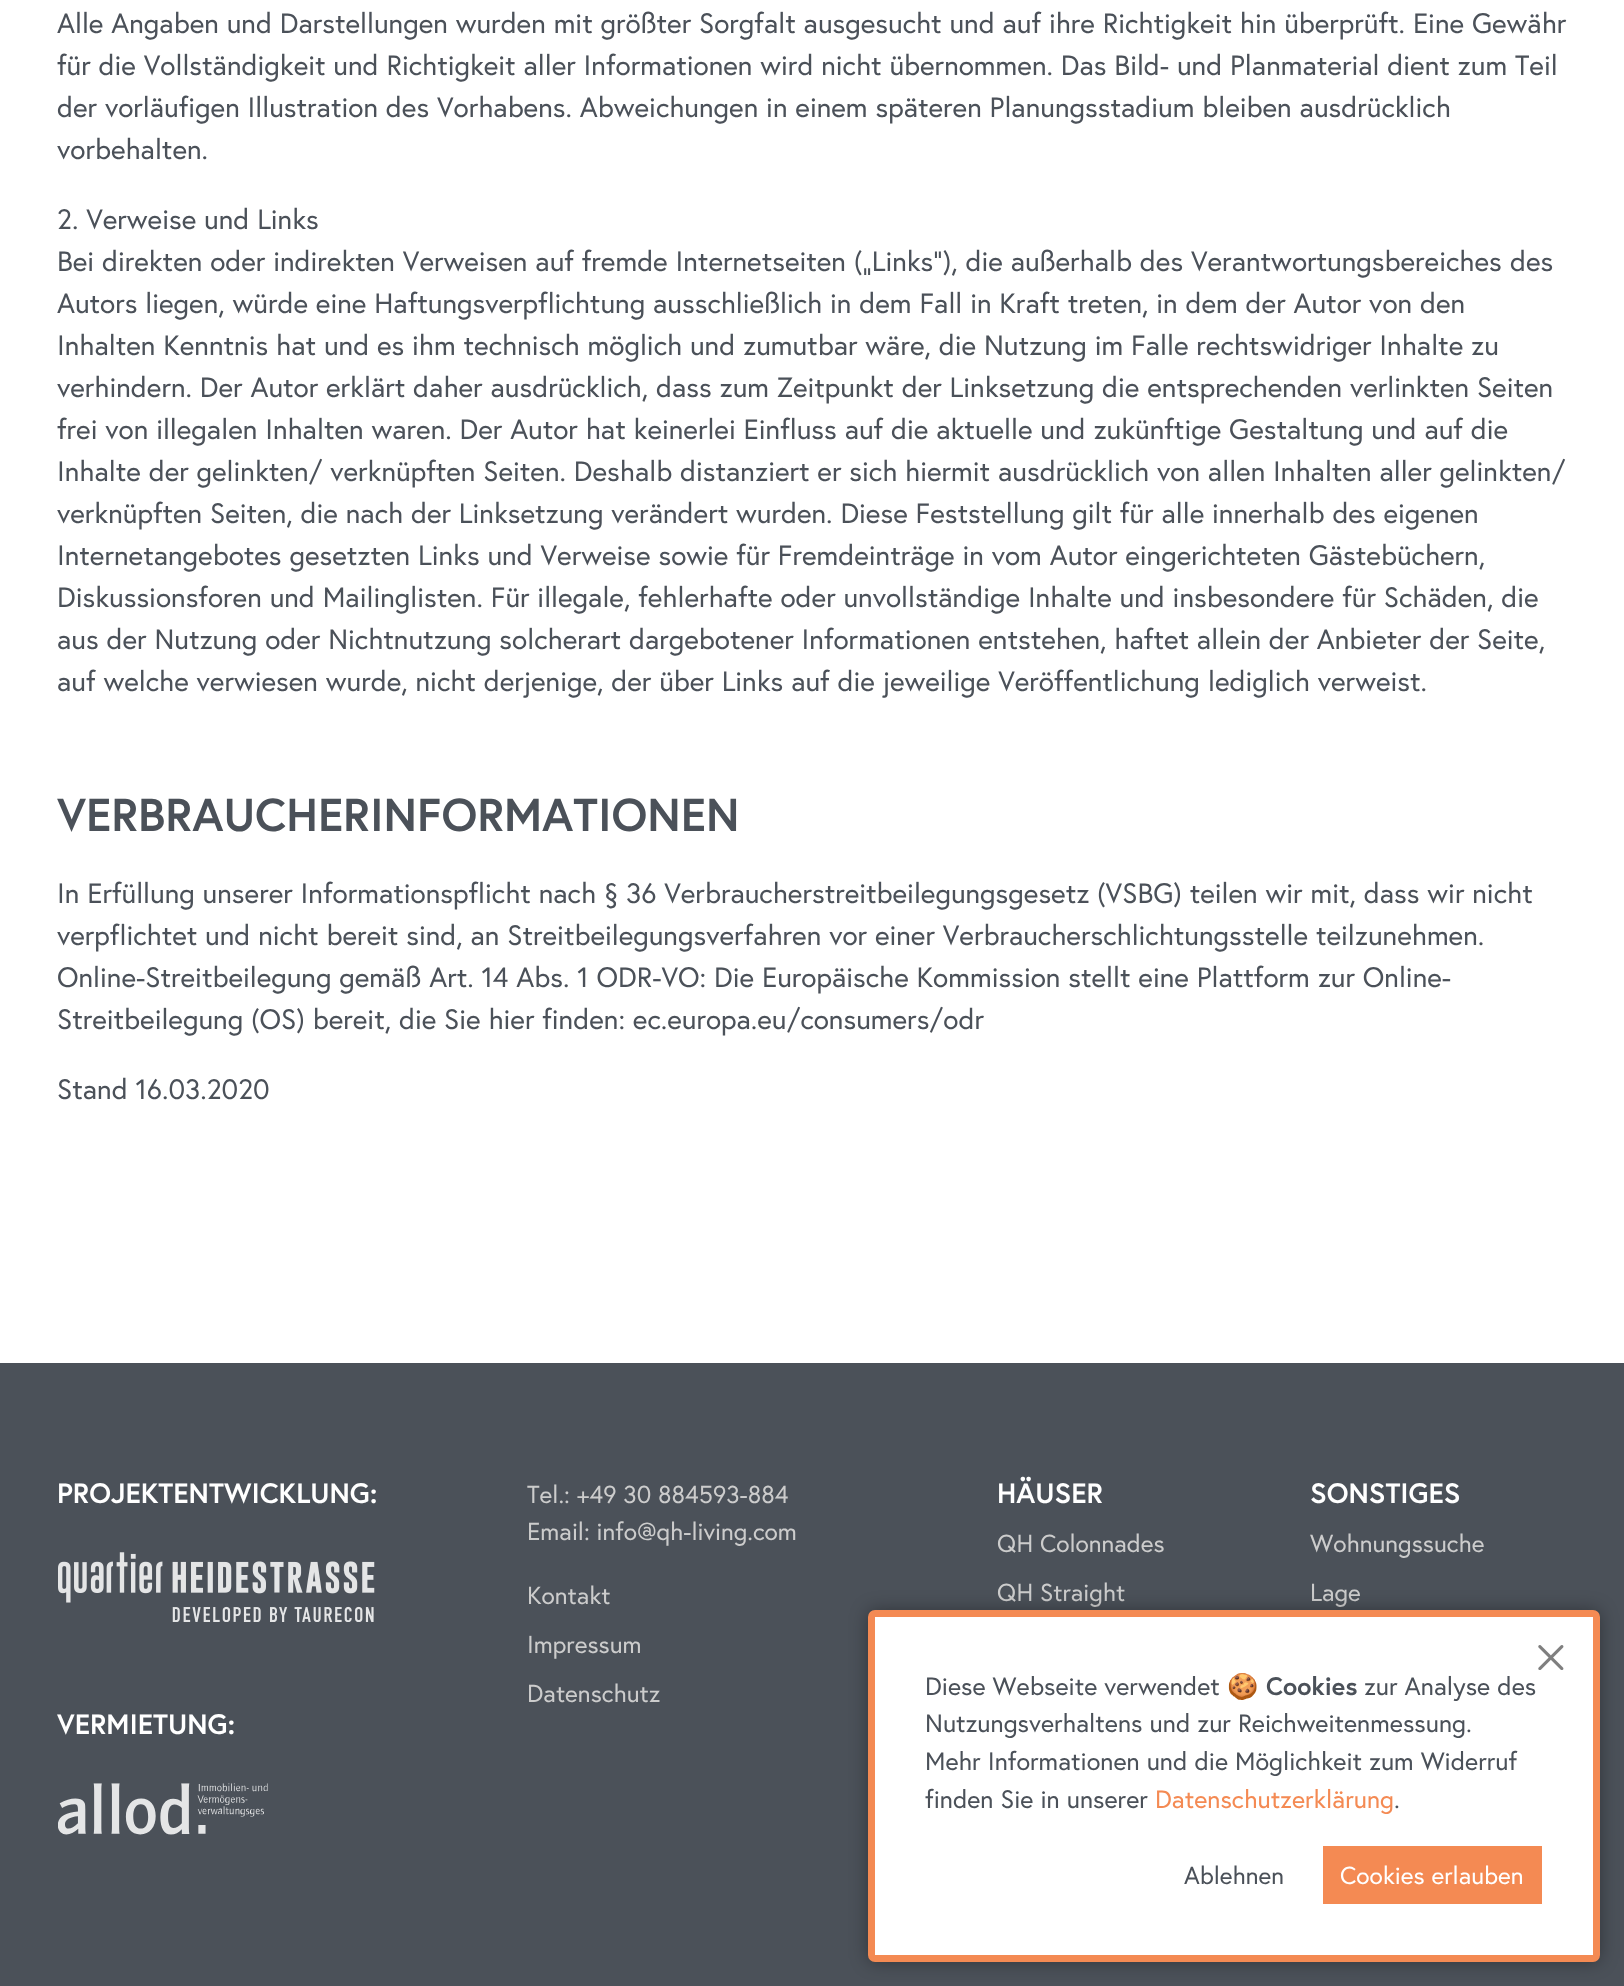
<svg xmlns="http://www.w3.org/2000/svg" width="1624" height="1986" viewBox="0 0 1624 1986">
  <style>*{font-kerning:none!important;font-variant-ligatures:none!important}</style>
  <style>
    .t1 { font: 28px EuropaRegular; fill: #4b5159; }
    .t2 { font: bold 46.1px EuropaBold; fill: #4b5159; }
    .t3 { font: bold 28px EuropaBold; fill: #fff; }
    .t4 { font: 24.5px EuropaRegular; fill: #ccc; }
    .t5 { font: 25.2px EuropaRegular; fill: #4b5159; }
    .t6 { font: bold 25.2px Noto Color Emoji; fill: #4b5159; }
    .t7 { font: bold 25.2px EuropaBold; fill: #4b5159; }
    .t8 { font: 25.2px EuropaRegular; fill: #f48a53; }
    .t9 { font: 24.5px EuropaRegular; fill: #4b5159; }
    .t10 { font: 24.5px EuropaRegular; fill: #fff; }
  </style>
  <rect width="100%" height="100%" fill="#fff"/>
  <text x="57" y="33" class="t1">Alle Angaben und Darstellungen wurden mit größter Sorgfalt ausgesucht und auf ihre Richtigkeit hin überprüft. Eine Gewähr</text>
  <text x="57" y="75" class="t1">für die Vollständigkeit und Richtigkeit aller Informationen wird nicht übernommen. Das Bild- und Planmaterial dient zum Teil</text>
  <text x="57" y="117" class="t1">der vorläufigen Illustration des Vorhabens. Abweichungen in einem späteren Planungsstadium bleiben ausdrücklich</text>
  <text x="57" y="159" class="t1">vorbehalten.</text>
  <text x="57" y="229" class="t1">2. Verweise und Links</text>
  <text x="57" y="271" class="t1">Bei direkten oder indirekten Verweisen auf fremde Internetseiten („Links“), die außerhalb des Verantwortungsbereiches</text>
  <text x="1510" y="271" class="t1">des</text>
  <text x="57" y="313" class="t1">Autors liegen, würde eine Haftungsverpflichtung ausschließlich in dem Fall in Kraft treten, in dem der Autor von den</text>
  <text x="57" y="355" class="t1">Inhalten Kenntnis hat und es ihm technisch möglich und zumutbar wäre, die Nutzung im Falle rechtswidriger Inhalte zu</text>
  <text x="57" y="397" class="t1">verhindern. Der Autor erklärt daher ausdrücklich, dass zum Zeitpunkt der Linksetzung die entsprechenden verlinkten Seiten</text>
  <text x="57" y="439" class="t1">frei von illegalen Inhalten waren. Der Autor hat keinerlei Einfluss auf die aktuelle und zukünftige Gestaltung und auf die</text>
  <text x="57" y="481" class="t1">Inhalte der gelinkten/ verknüpften Seiten. Deshalb distanziert er sich hiermit ausdrücklich von allen Inhalten aller gelinkten/</text>
  <text x="57" y="523" class="t1">verknüpften Seiten, die nach der Linksetzung verändert wurden. Diese Feststellung gilt für alle innerhalb des eigenen</text>
  <text x="57" y="565" class="t1">Internetangebotes gesetzten Links und Verweise sowie für Fremdeinträge in vom Autor eingerichteten Gästebüchern,</text>
  <text x="57" y="607" class="t1">Diskussionsforen und Mailinglisten. Für illegale, fehlerhafte oder unvollständige Inhalte und insbesondere für Schäden, die</text>
  <text x="57" y="649" class="t1">aus der Nutzung oder Nichtnutzung solcherart dargebotener Informationen entstehen, haftet allein der Anbieter der Seite,</text>
  <text x="57" y="691" class="t1">auf welche verwiesen wurde, nicht derjenige, der über Links auf die jeweilige Veröffentlichung</text>
  <text x="1208" y="691" class="t1">lediglich verweist.</text>
  <text x="57" y="831" class="t2">VERBRAUCHERINFORMATIONEN</text>
  <text x="57" y="903" class="t1">In Erfüllung unserer Informationspflicht nach § 36 Verbraucherstreitbeilegungsgesetz</text>
  <text x="1097" y="903" class="t1">(VSBG) teilen wir mit, dass wir nicht</text>
  <text x="57" y="945" class="t1">verpflichtet und nicht bereit sind, an Streitbeilegungsverfahren vor einer Verbraucherschlichtungsstelle</text>
  <text x="1316" y="945" class="t1">teilzunehmen.</text>
  <text x="57" y="987" class="t1">Online-Streitbeilegung gemäß Art. 14 Abs. 1 ODR-VO: Die Europäische Kommission stellt eine Plattform zur Online-</text>
  <text x="57" y="1029" class="t1">Streitbeilegung (OS) bereit, die Sie hier finden: ec.europa.eu/consumers/odr</text>
  <text x="57" y="1099" class="t1">Stand 16.03.2020</text>
  <rect x="0" y="1363" width="1624" height="623" fill="#4b5159"/>
  <text x="57" y="1503" class="t3">PROJEKTENTWICKLUNG:</text>
  <image x="58" y="1552" width="317" height="70" href="images/1.png"/>
  <text x="57" y="1734" class="t3">VERMIETUNG:</text>
  <image x="58" y="1783" width="210" height="52" href="images/2.png"/>
  <text x="527" y="1503" class="t4">Tel.: +49 30 884593-884</text>
  <text x="527" y="1540" class="t4">Email: info@qh-living.com</text>
  <text x="527" y="1604" class="t4">Kontakt</text>
  <text x="527" y="1653" class="t4">Impressum</text>
  <text x="527" y="1702" class="t4">Datenschutz</text>
  <text x="997" y="1503" class="t3">HÄUSER</text>
  <text x="997" y="1552" class="t4">QH Colonnades</text>
  <text x="997" y="1601" class="t4">QH Straight</text>
  <text x="1310" y="1503" class="t3">SONSTIGES</text>
  <text x="1310" y="1552" class="t4">Wohnungssuche</text>
  <text x="1310" y="1601" class="t4">Lage</text>
  <rect x="868" y="1610" width="732" height="352" rx="7" fill="#00000059" filter="blur(9px)"/>
  <rect x="871.5" y="1613.5" width="725" height="345" rx="3.5" fill="#fff" stroke="#f48a53" stroke-width="7"/>
  <image x="1538" y="1645" width="26" height="25" href="images/3.png"/>
  <text x="925" y="1695" class="t5">Diese Webseite verwendet</text>
  <text x="1227" y="1695" class="t6">🍪</text>
  <text x="1266" y="1695" class="t7">Cookies</text>
  <text x="1364" y="1695" class="t5">zur Analyse des</text>
  <text x="925" y="1732" class="t5">Nutzungsverhaltens und zur Reichweitenmessung.</text>
  <text x="925" y="1770" class="t5">Mehr Informationen und die Möglichkeit zum Widerruf</text>
  <text x="925" y="1808" class="t5">finden Sie in unserer</text>
  <text x="1155" y="1808" class="t8">Datenschutzerklärung</text>
  <text x="1394" y="1808" class="t5">.</text>
  <text x="1184" y="1884" class="t9">Ablehnen</text>
  <rect x="1323" y="1846" width="219" height="58" fill="#f48a53"/>
  <text x="1340" y="1884" class="t10">Cookies erlauben</text>
</svg>
